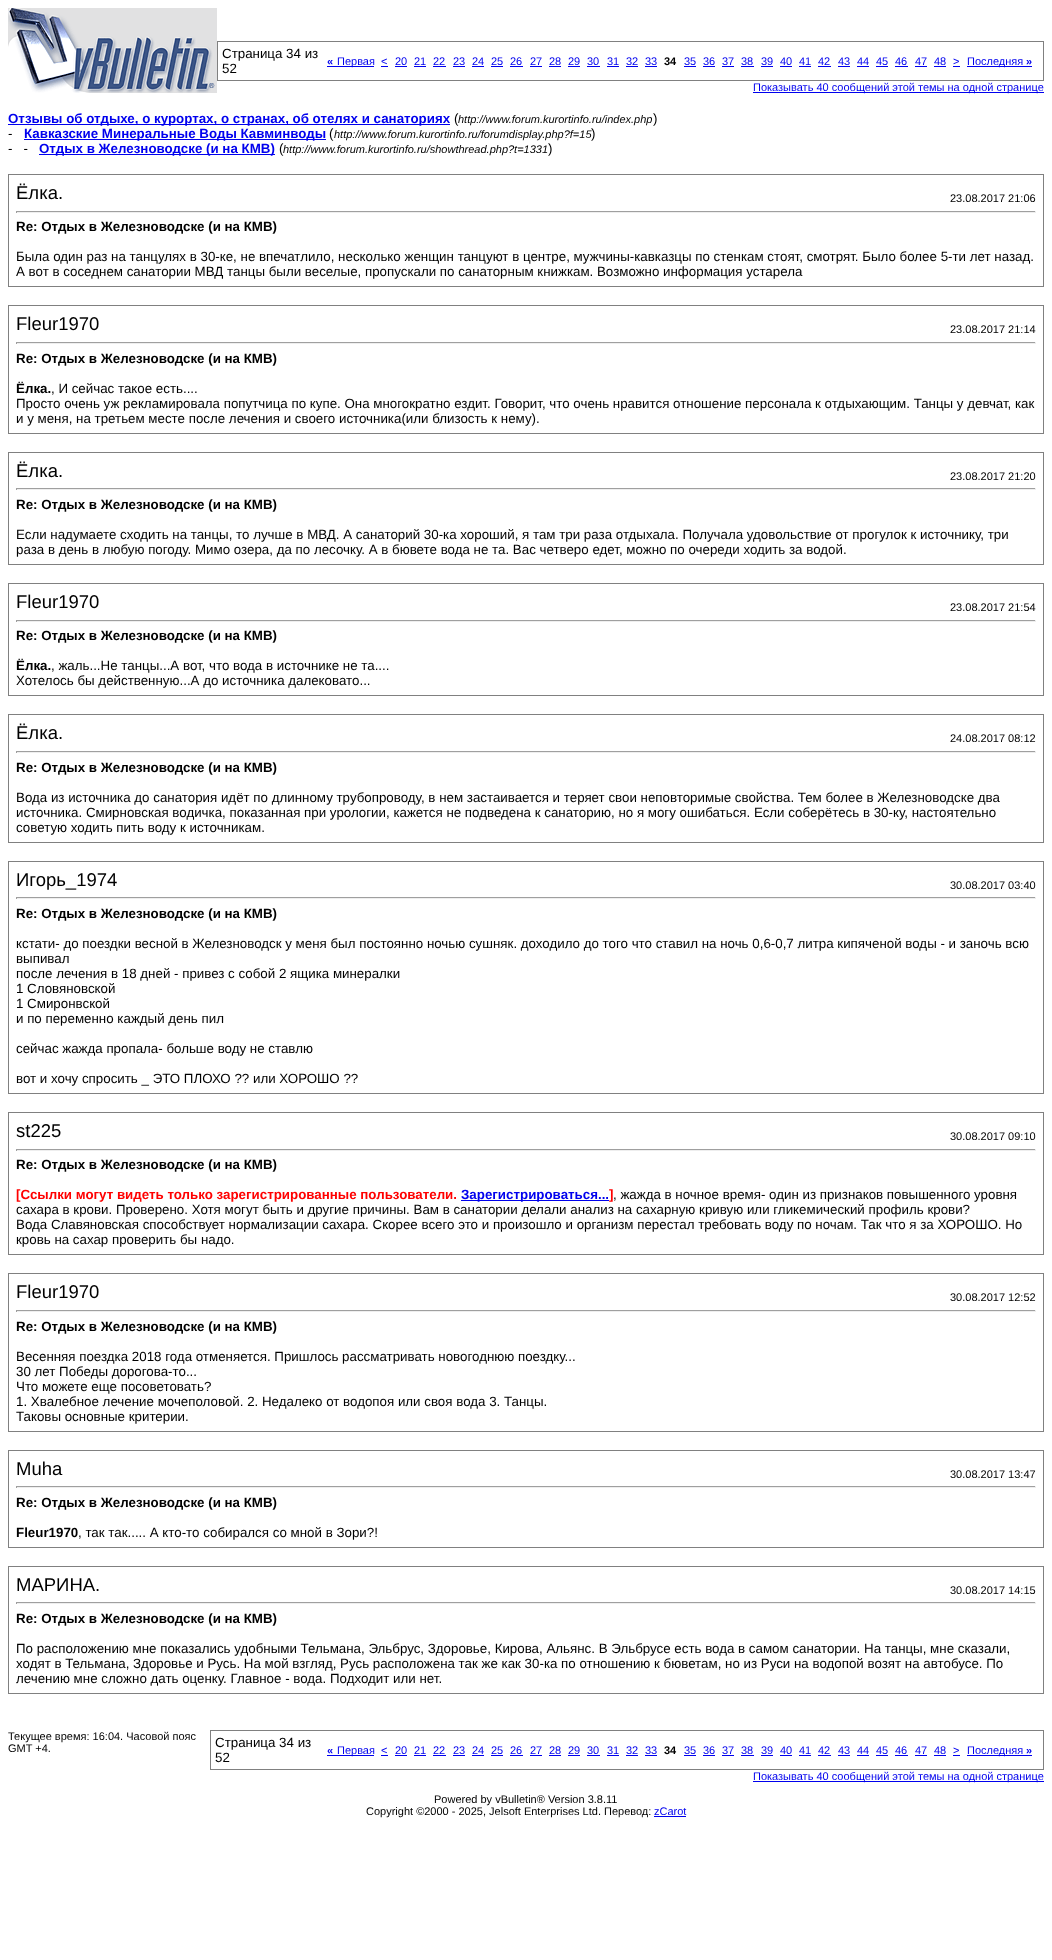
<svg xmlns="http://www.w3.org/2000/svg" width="1052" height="1960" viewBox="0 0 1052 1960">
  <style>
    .t1 { font: 13.33px Liberation Sans; fill: #000; }
    .t2 { font: bold 11px Liberation Sans; fill: #00e; }
    .t3 { font: 11px Liberation Sans; fill: #00e; }
    .t4 { font: bold 11px Liberation Sans; fill: #000; }
    .t5 { font: bold 13.33px Liberation Sans; fill: #00e; }
    .t6 { font: italic 11px Liberation Sans; fill: #000; }
    .t7 { font: 18.5px Liberation Sans; fill: #000; }
    .t8 { font: 11px Liberation Sans; fill: #000; }
    .t9 { font: bold 13.33px Liberation Sans; fill: #000; }
    .t10 { font: bold 13.33px Liberation Sans; fill: #f00; }
  </style>
  <rect width="100%" height="100%" fill="#fff"/>
  <image x="8" y="8" width="209" height="85" href="images/1.png"/>
  <rect x="217.5" y="41.5" width="826" height="39" fill="none" stroke="#808080"/>
  <text x="222" y="58" class="t1">Страница 34 из</text>
  <text x="222" y="73" class="t1">52</text>
  <text x="327" y="65" class="t2">«</text>
  <rect x="327" y="66" width="47" height="1" fill="#00e"/>
  <text x="337" y="65" class="t3">Первая</text>
  <text x="381" y="65" class="t3">&lt;</text>
  <rect x="381" y="66" width="7" height="1" fill="#00e"/>
  <text x="395" y="65" class="t3">20</text>
  <rect x="395" y="66" width="12" height="1" fill="#00e"/>
  <text x="414" y="65" class="t3">21</text>
  <rect x="414" y="66" width="12" height="1" fill="#00e"/>
  <text x="433" y="65" class="t3">22</text>
  <rect x="433" y="66" width="13" height="1" fill="#00e"/>
  <text x="453" y="65" class="t3">23</text>
  <rect x="453" y="66" width="12" height="1" fill="#00e"/>
  <text x="472" y="65" class="t3">24</text>
  <rect x="472" y="66" width="12" height="1" fill="#00e"/>
  <text x="491" y="65" class="t3">25</text>
  <rect x="491" y="66" width="12" height="1" fill="#00e"/>
  <text x="510" y="65" class="t3">26</text>
  <rect x="510" y="66" width="13" height="1" fill="#00e"/>
  <text x="530" y="65" class="t3">27</text>
  <rect x="530" y="66" width="12" height="1" fill="#00e"/>
  <text x="549" y="65" class="t3">28</text>
  <rect x="549" y="66" width="12" height="1" fill="#00e"/>
  <text x="568" y="65" class="t3">29</text>
  <rect x="568" y="66" width="12" height="1" fill="#00e"/>
  <text x="587" y="65" class="t3">30</text>
  <rect x="587" y="66" width="13" height="1" fill="#00e"/>
  <text x="607" y="65" class="t3">31</text>
  <rect x="607" y="66" width="12" height="1" fill="#00e"/>
  <text x="626" y="65" class="t3">32</text>
  <rect x="626" y="66" width="12" height="1" fill="#00e"/>
  <text x="645" y="65" class="t3">33</text>
  <rect x="645" y="66" width="12" height="1" fill="#00e"/>
  <text x="664" y="65" class="t4">34</text>
  <text x="684" y="65" class="t3">35</text>
  <rect x="684" y="66" width="12" height="1" fill="#00e"/>
  <text x="703" y="65" class="t3">36</text>
  <rect x="703" y="66" width="12" height="1" fill="#00e"/>
  <text x="722" y="65" class="t3">37</text>
  <rect x="722" y="66" width="12" height="1" fill="#00e"/>
  <text x="741" y="65" class="t3">38</text>
  <rect x="741" y="66" width="13" height="1" fill="#00e"/>
  <text x="761" y="65" class="t3">39</text>
  <rect x="761" y="66" width="12" height="1" fill="#00e"/>
  <text x="780" y="65" class="t3">40</text>
  <rect x="780" y="66" width="12" height="1" fill="#00e"/>
  <text x="799" y="65" class="t3">41</text>
  <rect x="799" y="66" width="12" height="1" fill="#00e"/>
  <text x="818" y="65" class="t3">42</text>
  <rect x="818" y="66" width="13" height="1" fill="#00e"/>
  <text x="838" y="65" class="t3">43</text>
  <rect x="838" y="66" width="12" height="1" fill="#00e"/>
  <text x="857" y="65" class="t3">44</text>
  <rect x="857" y="66" width="12" height="1" fill="#00e"/>
  <text x="876" y="65" class="t3">45</text>
  <rect x="876" y="66" width="12" height="1" fill="#00e"/>
  <text x="895" y="65" class="t3">46</text>
  <rect x="895" y="66" width="13" height="1" fill="#00e"/>
  <text x="915" y="65" class="t3">47</text>
  <rect x="915" y="66" width="12" height="1" fill="#00e"/>
  <text x="934" y="65" class="t3">48</text>
  <rect x="934" y="66" width="12" height="1" fill="#00e"/>
  <text x="953" y="65" class="t3">&gt;</text>
  <rect x="953" y="66" width="7" height="1" fill="#00e"/>
  <rect x="967" y="66" width="65" height="1" fill="#00e"/>
  <text x="967" y="65" class="t3">Последняя</text>
  <text x="1026" y="65" class="t2">»</text>
  <rect x="753" y="92" width="291" height="1" fill="#00e"/>
  <text x="753" y="91" class="t3">Показывать 40 сообщений этой темы на одной странице</text>
  <rect x="8" y="124" width="442" height="1" fill="#00e"/>
  <text x="8" y="123" class="t5">Отзывы об отдыхе, о курортах, о странах, об отелях и санаториях</text>
  <text x="454" y="123" class="t1">(</text>
  <text x="458" y="123" class="t6">http://www.forum.kurortinfo.ru/index.php</text>
  <text x="653" y="123" class="t1">)</text>
  <text x="8" y="138" class="t1">-</text>
  <rect x="24" y="139" width="302" height="1" fill="#00e"/>
  <text x="24" y="138" class="t5">Кавказские Минеральные Воды Кавминводы</text>
  <text x="329" y="138" class="t1">(</text>
  <text x="334" y="138" class="t6">http://www.forum.kurortinfo.ru/forumdisplay.php?f=15</text>
  <text x="591" y="138" class="t1">)</text>
  <text x="8" y="153" class="t1" xml:space="preserve">-   -</text>
  <rect x="39" y="154" width="236" height="1" fill="#00e"/>
  <text x="39" y="153" class="t5">Отдых в Железноводске (и на КМВ)</text>
  <text x="279" y="153" class="t1">(</text>
  <text x="283" y="153" class="t6">http://www.forum.kurortinfo.ru/showthread.php?t=1331</text>
  <text x="548" y="153" class="t1">)</text>
  <rect x="8.5" y="174.5" width="1035" height="112" fill="none" stroke="#808080"/>
  <text x="16" y="199" class="t7">Ёлка.</text>
  <text x="950" y="202" class="t8">23.08.2017 21:06</text>
  <rect x="16" y="211" width="1020" height="1" fill="#9f9f9f"/>
  <rect x="1035" y="211" width="1" height="2" fill="#eee"/>
  <rect x="16" y="212" width="1020" height="1" fill="#eee"/>
  <rect x="16" y="211" width="1" height="2" fill="#9f9f9f"/>
  <text x="16" y="231" class="t9">Re: Отдых в Железноводске (и на КМВ)</text>
  <text x="16" y="261" class="t1">Была один раз на танцулях в 30-ке, не впечатлило, несколько женщин танцуют в центре, мужчины-кавказцы по стенкам стоят, смотрят. Было более 5-ти лет назад.</text>
  <text x="16" y="276" class="t1">А вот в соседнем санатории МВД танцы были веселые, пропускали по санаторным книжкам. Возможно информация устарела</text>
  <rect x="8.5" y="305.5" width="1035" height="128" fill="none" stroke="#808080"/>
  <text x="16" y="330" class="t7">Fleur1970</text>
  <text x="950" y="333" class="t8">23.08.2017 21:14</text>
  <rect x="16" y="342" width="1020" height="1" fill="#9f9f9f"/>
  <rect x="1035" y="342" width="1" height="2" fill="#eee"/>
  <rect x="16" y="343" width="1020" height="1" fill="#eee"/>
  <rect x="16" y="342" width="1" height="2" fill="#9f9f9f"/>
  <text x="16" y="363" class="t9">Re: Отдых в Железноводске (и на КМВ)</text>
  <text x="16" y="393" class="t9">Ёлка.</text>
  <text x="51" y="393" class="t1">, И сейчас такое есть....</text>
  <text x="16" y="408" class="t1">Просто очень уж рекламировала попутчица по купе. Она многократно ездит. Говорит, что очень нравится отношение персонала к отдыхающим. Танцы у девчат, как</text>
  <text x="16" y="423" class="t1">и у меня, на третьем месте после лечения и своего источника(или близость к нему).</text>
  <rect x="8.5" y="452.5" width="1035" height="112" fill="none" stroke="#808080"/>
  <text x="16" y="477" class="t7">Ёлка.</text>
  <text x="950" y="480" class="t8">23.08.2017 21:20</text>
  <rect x="16" y="488" width="1020" height="1" fill="#9f9f9f"/>
  <rect x="1035" y="488" width="1" height="2" fill="#eee"/>
  <rect x="16" y="489" width="1020" height="1" fill="#eee"/>
  <rect x="16" y="488" width="1" height="2" fill="#9f9f9f"/>
  <text x="16" y="509" class="t9">Re: Отдых в Железноводске (и на КМВ)</text>
  <text x="16" y="539" class="t1">Если надумаете сходить на танцы, то лучше в МВД. А санаторий 30-ка хороший, я там три раза отдыхала. Получала удовольствие от прогулок к источнику, три</text>
  <text x="16" y="554" class="t1">раза в день в любую погоду. Мимо озера, да по лесочку. А в бювете вода не та. Вас четверо едет, можно по очереди ходить за водой.</text>
  <rect x="8.5" y="583.5" width="1035" height="112" fill="none" stroke="#808080"/>
  <text x="16" y="608" class="t7">Fleur1970</text>
  <text x="950" y="611" class="t8">23.08.2017 21:54</text>
  <rect x="16" y="620" width="1020" height="1" fill="#9f9f9f"/>
  <rect x="1035" y="620" width="1" height="2" fill="#eee"/>
  <rect x="16" y="621" width="1020" height="1" fill="#eee"/>
  <rect x="16" y="620" width="1" height="2" fill="#9f9f9f"/>
  <text x="16" y="640" class="t9">Re: Отдых в Железноводске (и на КМВ)</text>
  <text x="16" y="670" class="t9">Ёлка.</text>
  <text x="51" y="670" class="t1">, жаль...Не танцы...А вот, что вода в источнике не та....</text>
  <text x="16" y="685" class="t1">Хотелось бы действенную...А до источника далековато...</text>
  <rect x="8.5" y="714.5" width="1035" height="128" fill="none" stroke="#808080"/>
  <text x="16" y="739" class="t7">Ёлка.</text>
  <text x="950" y="742" class="t8">24.08.2017 08:12</text>
  <rect x="16" y="751" width="1020" height="1" fill="#9f9f9f"/>
  <rect x="1035" y="751" width="1" height="2" fill="#eee"/>
  <rect x="16" y="752" width="1020" height="1" fill="#eee"/>
  <rect x="16" y="751" width="1" height="2" fill="#9f9f9f"/>
  <text x="16" y="772" class="t9">Re: Отдых в Железноводске (и на КМВ)</text>
  <text x="16" y="802" class="t1">Вода из источника до санатория идёт по длинному трубопроводу, в нем застаивается и теряет свои неповторимые свойства. Тем более в Железноводске два</text>
  <text x="16" y="817" class="t1">источника. Смирновская водичка, показанная при урологии, кажется не подведена к санаторию, но я могу ошибаться. Если соберётесь в 30-ку, настоятельно</text>
  <text x="16" y="832" class="t1">советую ходить пить воду к источникам.</text>
  <rect x="8.5" y="861.5" width="1035" height="232" fill="none" stroke="#808080"/>
  <text x="16" y="886" class="t7">Игорь_1974</text>
  <text x="950" y="889" class="t8">30.08.2017 03:40</text>
  <rect x="16" y="897" width="1020" height="1" fill="#9f9f9f"/>
  <rect x="1035" y="897" width="1" height="2" fill="#eee"/>
  <rect x="16" y="898" width="1020" height="1" fill="#eee"/>
  <rect x="16" y="897" width="1" height="2" fill="#9f9f9f"/>
  <text x="16" y="918" class="t9">Re: Отдых в Железноводске (и на КМВ)</text>
  <text x="16" y="948" class="t1">кстати- до поездки весной в Железноводск у меня был постоянно ночью сушняк. доходило до того что ставил на ночь 0,6-0,7 литра кипяченой воды - и заночь всю</text>
  <text x="16" y="963" class="t1">выпивал</text>
  <text x="16" y="978" class="t1">после лечения в 18 дней - привез с собой 2 ящика минералки</text>
  <text x="16" y="993" class="t1">1 Словяновской</text>
  <text x="16" y="1008" class="t1">1 Смиронвской</text>
  <text x="16" y="1023" class="t1">и по переменно каждый день пил</text>
  <text x="16" y="1053" class="t1">сейчас жажда пропала- больше воду не ставлю</text>
  <text x="16" y="1083" class="t1">вот и хочу спросить _ ЭТО ПЛОХО ?? или ХОРОШО ??</text>
  <rect x="8.5" y="1112.5" width="1035" height="142" fill="none" stroke="#808080"/>
  <text x="16" y="1137" class="t7">st225</text>
  <text x="950" y="1140" class="t8">30.08.2017 09:10</text>
  <rect x="16" y="1149" width="1020" height="1" fill="#9f9f9f"/>
  <rect x="1035" y="1149" width="1" height="2" fill="#eee"/>
  <rect x="16" y="1150" width="1020" height="1" fill="#eee"/>
  <rect x="16" y="1149" width="1" height="2" fill="#9f9f9f"/>
  <text x="16" y="1169" class="t9">Re: Отдых в Железноводске (и на КМВ)</text>
  <text x="16" y="1199" class="t10">[Ссылки могут видеть только зарегистрированные пользователи.</text>
  <rect x="461" y="1200" width="148" height="1" fill="#00e"/>
  <text x="461" y="1199" class="t5">Зарегистрироваться...</text>
  <text x="609" y="1199" class="t10">]</text>
  <text x="613" y="1199" class="t1">, жажда в ночное время- один из признаков повышенного уровня</text>
  <text x="16" y="1214" class="t1">сахара в крови. Проверено. Хотя могут быть и другие причины. Вам в санатории делали анализ на сахарную кривую или гликемический профиль крови?</text>
  <text x="16" y="1229" class="t1">Вода Славяновская способствует нормализации сахара. Скорее всего это и произошло и организм перестал требовать воду по ночам. Так что я за ХОРОШО. Но</text>
  <text x="16" y="1244" class="t1">кровь на сахар проверить бы надо.</text>
  <rect x="8.5" y="1273.5" width="1035" height="158" fill="none" stroke="#808080"/>
  <text x="16" y="1298" class="t7">Fleur1970</text>
  <text x="950" y="1301" class="t8">30.08.2017 12:52</text>
  <rect x="16" y="1310" width="1020" height="1" fill="#9f9f9f"/>
  <rect x="1035" y="1310" width="1" height="2" fill="#eee"/>
  <rect x="16" y="1311" width="1020" height="1" fill="#eee"/>
  <rect x="16" y="1310" width="1" height="2" fill="#9f9f9f"/>
  <text x="16" y="1331" class="t9">Re: Отдых в Железноводске (и на КМВ)</text>
  <text x="16" y="1361" class="t1">Весенняя поездка 2018 года отменяется. Пришлось рассматривать новогоднюю поездку...</text>
  <text x="16" y="1376" class="t1">30 лет Победы дорогова-то...</text>
  <text x="16" y="1391" class="t1">Что можете еще посоветовать?</text>
  <text x="16" y="1406" class="t1">1. Хвалебное лечение мочеполовой. 2. Недалеко от водопоя или своя вода 3. Танцы.</text>
  <text x="16" y="1421" class="t1">Таковы основные критерии.</text>
  <rect x="8.5" y="1450.5" width="1035" height="97" fill="none" stroke="#808080"/>
  <text x="16" y="1475" class="t7">Muha</text>
  <text x="950" y="1478" class="t8">30.08.2017 13:47</text>
  <rect x="16" y="1486" width="1020" height="1" fill="#9f9f9f"/>
  <rect x="1035" y="1486" width="1" height="2" fill="#eee"/>
  <rect x="16" y="1487" width="1020" height="1" fill="#eee"/>
  <rect x="16" y="1486" width="1" height="2" fill="#9f9f9f"/>
  <text x="16" y="1507" class="t9">Re: Отдых в Железноводске (и на КМВ)</text>
  <text x="16" y="1537" class="t9">Fleur1970</text>
  <text x="78" y="1537" class="t1">, так так..... А кто-то собирался со мной в Зори?!</text>
  <rect x="8.5" y="1566.5" width="1035" height="127" fill="none" stroke="#808080"/>
  <text x="16" y="1591" class="t7">МАРИНА.</text>
  <text x="950" y="1594" class="t8">30.08.2017 14:15</text>
  <rect x="16" y="1602" width="1020" height="1" fill="#9f9f9f"/>
  <rect x="1035" y="1602" width="1" height="2" fill="#eee"/>
  <rect x="16" y="1603" width="1020" height="1" fill="#eee"/>
  <rect x="16" y="1602" width="1" height="2" fill="#9f9f9f"/>
  <text x="16" y="1623" class="t9">Re: Отдых в Железноводске (и на КМВ)</text>
  <text x="16" y="1653" class="t1">По расположению мне показались удобными Тельмана, Эльбрус, Здоровье, Кирова, Альянс. В Эльбрусе есть вода в самом санатории. На танцы, мне сказали,</text>
  <text x="16" y="1668" class="t1">ходят в Тельмана, Здоровье и Русь. На мой взгляд, Русь расположена так же как 30-ка по отношению к бюветам, но из Руси на водопой возят на автобусе. По</text>
  <text x="16" y="1683" class="t1">лечению мне сложно дать оценку. Главное - вода. Подходит или нет.</text>
  <text x="8" y="1740" class="t8">Текущее время: 16:04. Часовой пояс</text>
  <text x="8" y="1752" class="t8">GMT +4.</text>
  <rect x="210.5" y="1730.5" width="833" height="39" fill="none" stroke="#808080"/>
  <text x="215" y="1747" class="t1">Страница 34 из</text>
  <text x="215" y="1762" class="t1">52</text>
  <text x="327" y="1754" class="t2">«</text>
  <rect x="327" y="1755" width="47" height="1" fill="#00e"/>
  <text x="337" y="1754" class="t3">Первая</text>
  <text x="381" y="1754" class="t3">&lt;</text>
  <rect x="381" y="1755" width="7" height="1" fill="#00e"/>
  <text x="395" y="1754" class="t3">20</text>
  <rect x="395" y="1755" width="12" height="1" fill="#00e"/>
  <text x="414" y="1754" class="t3">21</text>
  <rect x="414" y="1755" width="12" height="1" fill="#00e"/>
  <text x="433" y="1754" class="t3">22</text>
  <rect x="433" y="1755" width="13" height="1" fill="#00e"/>
  <text x="453" y="1754" class="t3">23</text>
  <rect x="453" y="1755" width="12" height="1" fill="#00e"/>
  <text x="472" y="1754" class="t3">24</text>
  <rect x="472" y="1755" width="12" height="1" fill="#00e"/>
  <text x="491" y="1754" class="t3">25</text>
  <rect x="491" y="1755" width="12" height="1" fill="#00e"/>
  <text x="510" y="1754" class="t3">26</text>
  <rect x="510" y="1755" width="13" height="1" fill="#00e"/>
  <text x="530" y="1754" class="t3">27</text>
  <rect x="530" y="1755" width="12" height="1" fill="#00e"/>
  <text x="549" y="1754" class="t3">28</text>
  <rect x="549" y="1755" width="12" height="1" fill="#00e"/>
  <text x="568" y="1754" class="t3">29</text>
  <rect x="568" y="1755" width="12" height="1" fill="#00e"/>
  <text x="587" y="1754" class="t3">30</text>
  <rect x="587" y="1755" width="13" height="1" fill="#00e"/>
  <text x="607" y="1754" class="t3">31</text>
  <rect x="607" y="1755" width="12" height="1" fill="#00e"/>
  <text x="626" y="1754" class="t3">32</text>
  <rect x="626" y="1755" width="12" height="1" fill="#00e"/>
  <text x="645" y="1754" class="t3">33</text>
  <rect x="645" y="1755" width="12" height="1" fill="#00e"/>
  <text x="664" y="1754" class="t4">34</text>
  <text x="684" y="1754" class="t3">35</text>
  <rect x="684" y="1755" width="12" height="1" fill="#00e"/>
  <text x="703" y="1754" class="t3">36</text>
  <rect x="703" y="1755" width="12" height="1" fill="#00e"/>
  <text x="722" y="1754" class="t3">37</text>
  <rect x="722" y="1755" width="12" height="1" fill="#00e"/>
  <text x="741" y="1754" class="t3">38</text>
  <rect x="741" y="1755" width="13" height="1" fill="#00e"/>
  <text x="761" y="1754" class="t3">39</text>
  <rect x="761" y="1755" width="12" height="1" fill="#00e"/>
  <text x="780" y="1754" class="t3">40</text>
  <rect x="780" y="1755" width="12" height="1" fill="#00e"/>
  <text x="799" y="1754" class="t3">41</text>
  <rect x="799" y="1755" width="12" height="1" fill="#00e"/>
  <text x="818" y="1754" class="t3">42</text>
  <rect x="818" y="1755" width="13" height="1" fill="#00e"/>
  <text x="838" y="1754" class="t3">43</text>
  <rect x="838" y="1755" width="12" height="1" fill="#00e"/>
  <text x="857" y="1754" class="t3">44</text>
  <rect x="857" y="1755" width="12" height="1" fill="#00e"/>
  <text x="876" y="1754" class="t3">45</text>
  <rect x="876" y="1755" width="12" height="1" fill="#00e"/>
  <text x="895" y="1754" class="t3">46</text>
  <rect x="895" y="1755" width="13" height="1" fill="#00e"/>
  <text x="915" y="1754" class="t3">47</text>
  <rect x="915" y="1755" width="12" height="1" fill="#00e"/>
  <text x="934" y="1754" class="t3">48</text>
  <rect x="934" y="1755" width="12" height="1" fill="#00e"/>
  <text x="953" y="1754" class="t3">&gt;</text>
  <rect x="953" y="1755" width="7" height="1" fill="#00e"/>
  <rect x="967" y="1755" width="65" height="1" fill="#00e"/>
  <text x="967" y="1754" class="t3">Последняя</text>
  <text x="1026" y="1754" class="t2">»</text>
  <rect x="753" y="1781" width="291" height="1" fill="#00e"/>
  <text x="753" y="1780" class="t3">Показывать 40 сообщений этой темы на одной странице</text>
  <text x="434" y="1803" class="t8">Powered by vBulletin® Version 3.8.11</text>
  <text x="366" y="1815" class="t8">Copyright ©2000 - 2025, Jelsoft Enterprises Ltd. Перевод:</text>
  <text x="654" y="1815" class="t3">zCarot</text>
  <rect x="654" y="1816" width="32" height="1" fill="#00e"/>
</svg>
